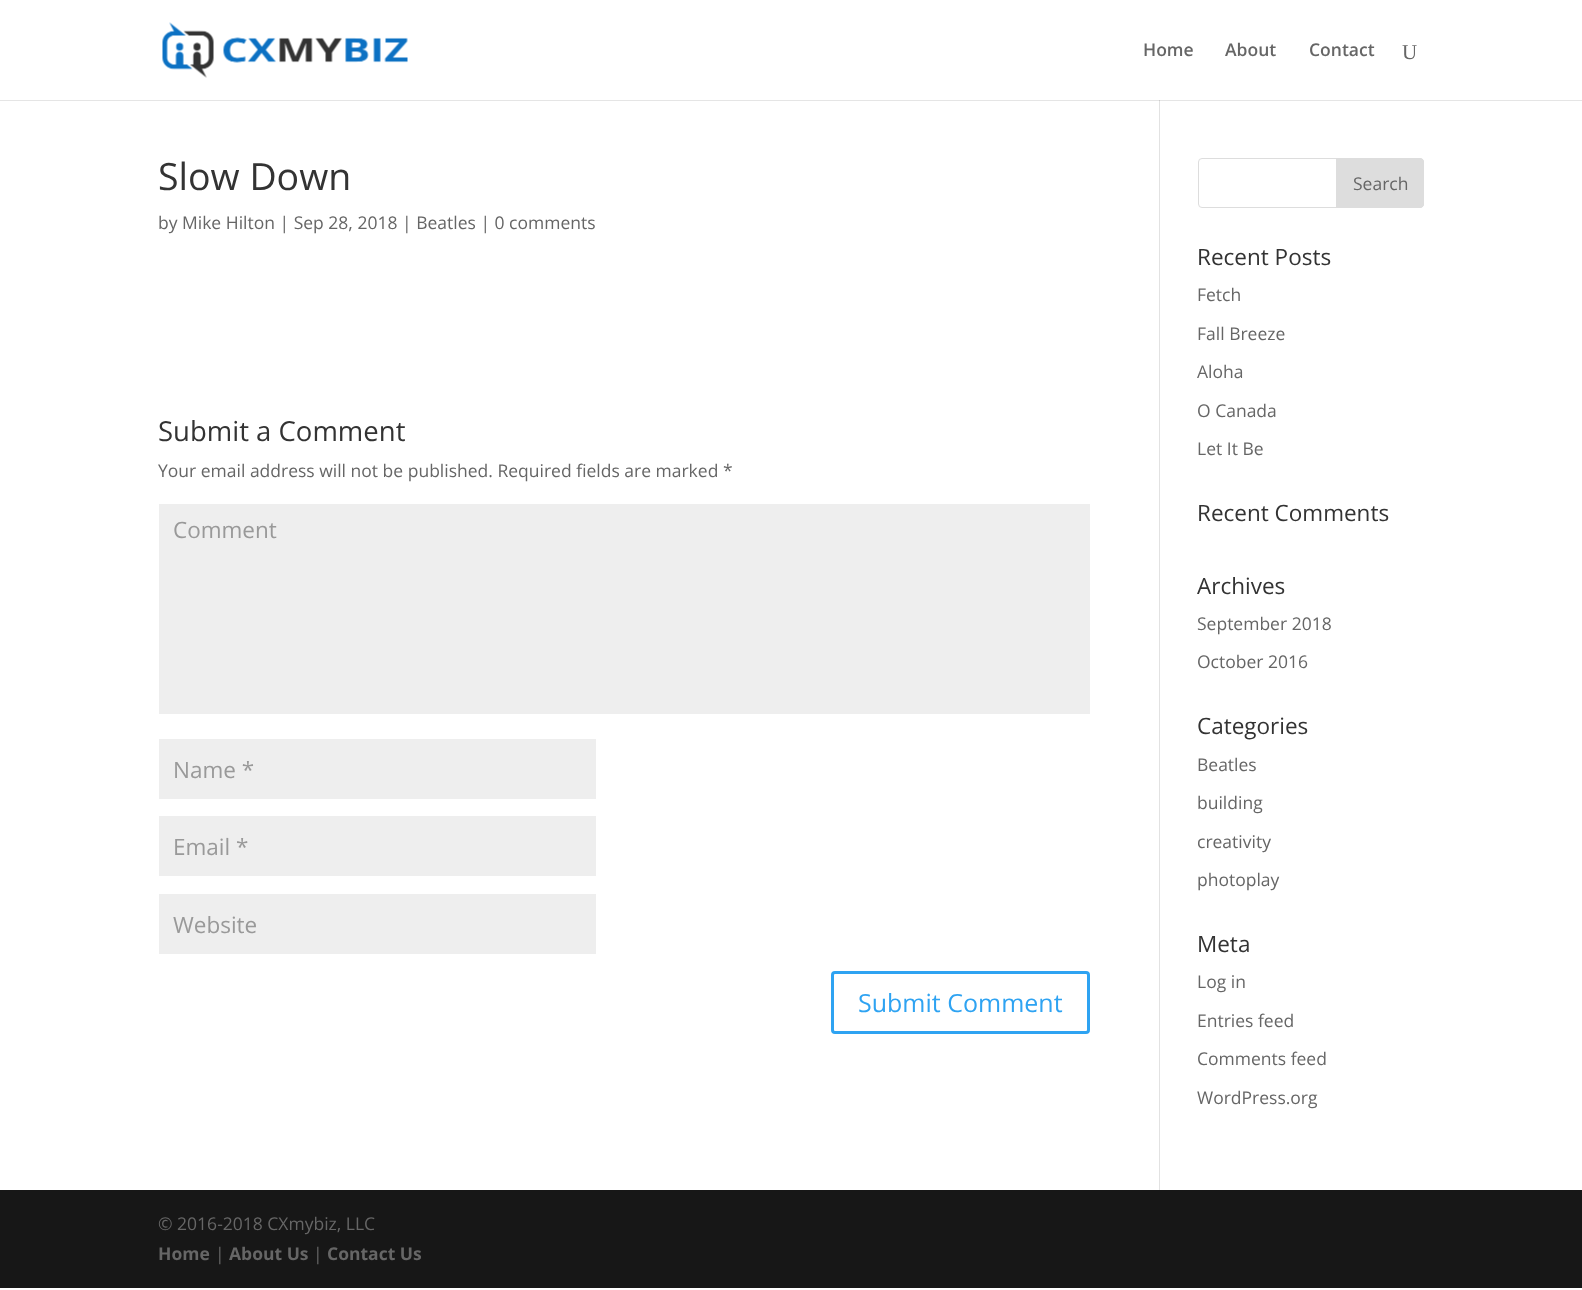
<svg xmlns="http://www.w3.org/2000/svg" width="1582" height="1290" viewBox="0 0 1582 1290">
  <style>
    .t1 { font: 600 17.5px Open Sans; fill: #666; }
    .t2 { font: 21px Liberation Serif; fill: #666; }
    .t3 { font: 37.5px Open Sans; fill: #333; }
    .t4 { font: 17.5px Open Sans; fill: #666; }
    .t5 { font: 27.5px Open Sans; fill: #333; }
    .t6 { font: 22.5px Open Sans; fill: #999; }
    .t7 { font: 25px Open Sans; fill: #2ea3f2; }
    .t8 { font: 22.5px Open Sans; fill: #333; }
    .t9 { font: bold 17.5px Open Sans; fill: #666; }
  </style>
  <rect width="100%" height="100%" fill="#fff"/>
  <rect x="1159" y="100" width="1" height="1090" fill="#e2e2e2"/>
  <path d="M0 100V101H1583V1H1582V100Z" fill="#0000001a"/>
  <image x="162" y="22" width="246" height="56" href="images/1.png"/>
  <text x="1143" y="56" class="t1">Home</text>
  <text x="1225" y="56" class="t1">About</text>
  <text x="1309" y="56" class="t1">Contact</text>
  <text x="1402" y="59" class="t2">U</text>
  <text x="158" y="190" class="t3">Slow Down</text>
  <text x="158" y="229" class="t4">by Mike Hilton | Sep 28, 2018 | Beatles | 0 comments</text>
  <text x="158" y="441" class="t5">Submit a Comment</text>
  <text x="158" y="477" class="t4">Your email address will not be published. Required fields are marked *</text>
  <rect x="159" y="504" width="931" height="210" fill="#eee"/>
  <text x="173" y="538" class="t6">Comment</text>
  <rect x="159" y="739" width="437" height="60" fill="#eee"/>
  <text x="173" y="778" class="t6">Name *</text>
  <rect x="159" y="816" width="437" height="60" fill="#eee"/>
  <text x="173" y="855" class="t6">Email *</text>
  <rect x="159" y="894" width="437" height="60" fill="#eee"/>
  <text x="173" y="933" class="t6">Website</text>
  <rect x="832.5" y="972.5" width="256" height="60" rx="2.5" fill="none" stroke="#2ea3f2" stroke-width="3"/>
  <text x="858" y="1012" class="t7">Submit Comment</text>
  <rect x="1198.5" y="158.5" width="225" height="49" rx="3.5" fill="none" stroke="#ddd"/>
  <path d="M1336.5 158.5H1420C1422 158.5 1423.5 160 1423.5 162V204C1423.5 206 1422 207.5 1420 207.5H1336.5Z" fill="#ddd" stroke="#ddd"/>
  <text x="1353" y="190" class="t4">Search</text>
  <text x="1197" y="265" class="t8">Recent Posts</text>
  <text x="1197" y="301" class="t4">Fetch</text>
  <text x="1197" y="340" class="t4">Fall Breeze</text>
  <text x="1197" y="378" class="t4">Aloha</text>
  <text x="1197" y="417" class="t4">O Canada</text>
  <text x="1197" y="455" class="t4">Let It Be</text>
  <text x="1197" y="521" class="t8">Recent Comments</text>
  <text x="1197" y="594" class="t8">Archives</text>
  <text x="1197" y="630" class="t4">September 2018</text>
  <text x="1197" y="668" class="t4">October 2016</text>
  <text x="1197" y="734" class="t8">Categories</text>
  <text x="1197" y="771" class="t4">Beatles</text>
  <text x="1197" y="809" class="t4">building</text>
  <text x="1197" y="848" class="t4">creativity</text>
  <text x="1197" y="886" class="t4">photoplay</text>
  <text x="1197" y="952" class="t8">Meta</text>
  <text x="1197" y="988" class="t4">Log in</text>
  <text x="1197" y="1027" class="t4">Entries feed</text>
  <text x="1197" y="1065" class="t4">Comments feed</text>
  <text x="1197" y="1104" class="t4">WordPress.org</text>
  <rect x="0" y="1190" width="1582" height="98" fill="#171717"/>
  <text x="158" y="1230" class="t4">© 2016-2018 CXmybiz, LLC</text>
  <text x="158" y="1260" class="t9">Home</text>
  <text x="215" y="1260" class="t4">|</text>
  <text x="229" y="1260" class="t9">About Us</text>
  <text x="313" y="1260" class="t4">|</text>
  <text x="327" y="1260" class="t9">Contact Us</text>
</svg>
